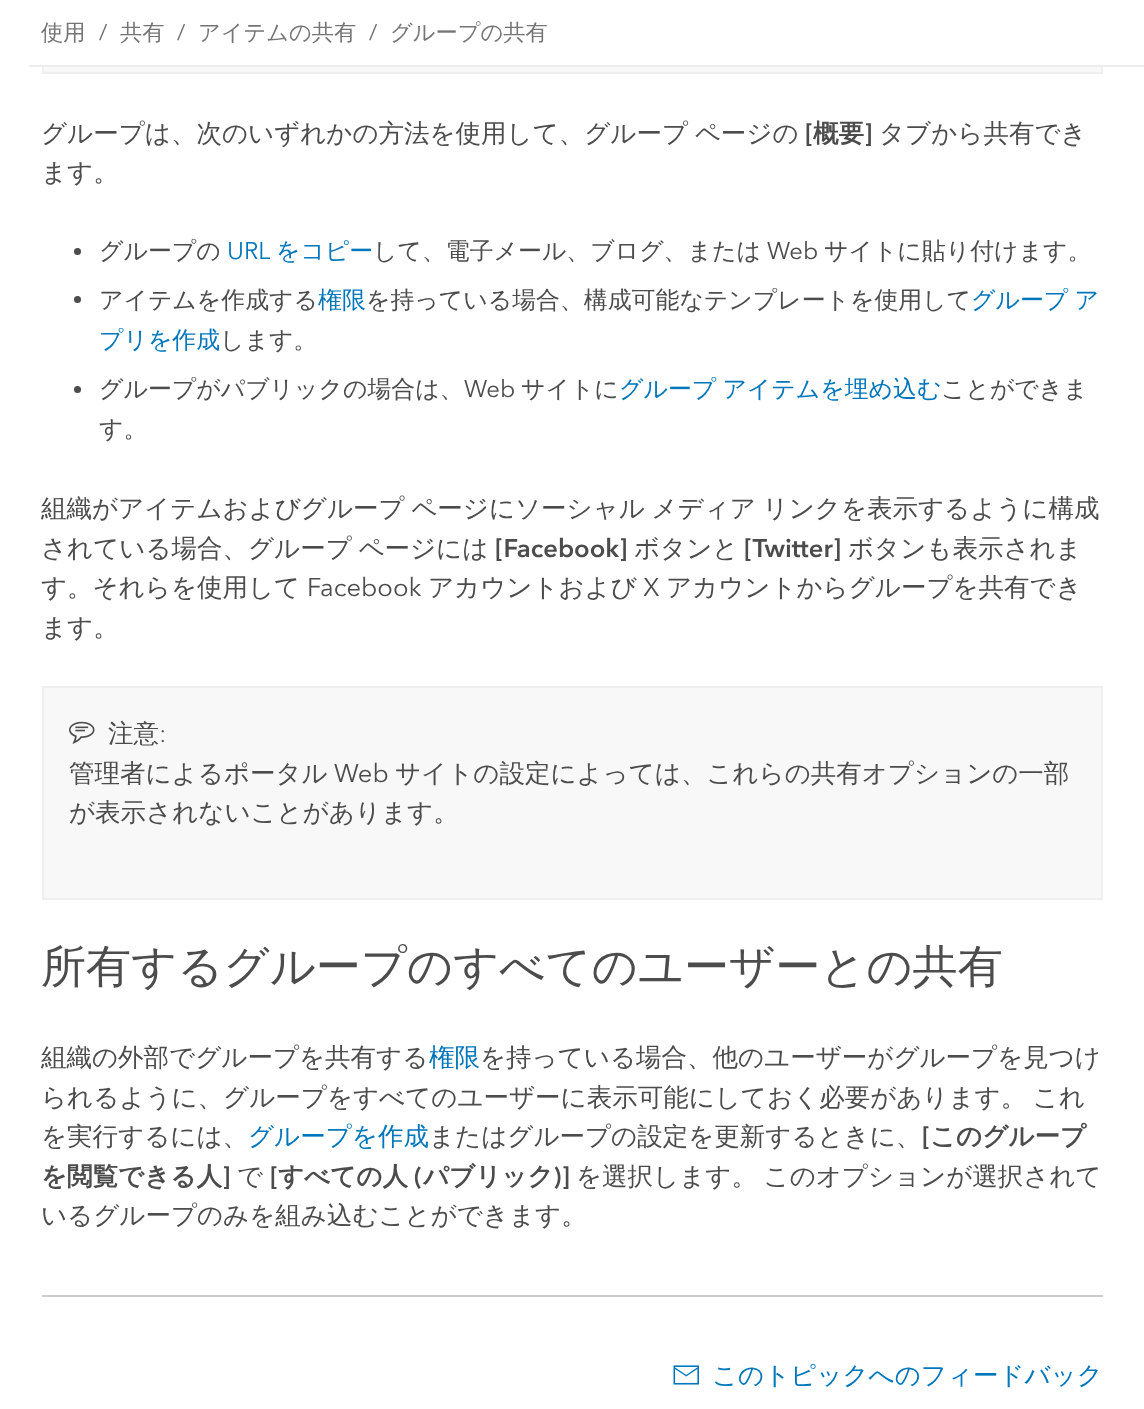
<svg xmlns="http://www.w3.org/2000/svg" width="1144" height="1409" viewBox="0 0 1144 1409">
  <style>
    .t1 { font: 500 22.25px WenQuanYi Zen Hei; fill: #757575; }
    .t2 { font: 22.25px Avenir Next; fill: #6e6e6e; }
    .t3 { font: 500 25.5px WenQuanYi Zen Hei; fill: #4c4c4c; }
    .t4 { font: bold 25.5px Avenir Next; fill: #4c4c4c; }
    .t5 { font: bold 25.5px WenQuanYi Zen Hei; fill: #4c4c4c; }
    .t6 { font: 500 23.9px WenQuanYi Zen Hei; fill: #4c4c4c; }
    .t7 { font: 23.9px Avenir Next; fill: #0076bc; }
    .t8 { font: 500 23.9px WenQuanYi Zen Hei; fill: #0076bc; }
    .t9 { font: 23.9px Avenir Next; fill: #4c4c4c; }
    .t10 { font: 25.5px Avenir Next; fill: #4c4c4c; }
    .t11 { font: 300 25.5px Avenir Next; fill: #4c4c4c; }
    .t12 { font: 500 45.1px WenQuanYi Zen Hei; fill: #4c4c4c; }
    .t13 { font: 500 25.5px WenQuanYi Zen Hei; fill: #0076bc; }
  </style>
  <rect width="100%" height="100%" fill="#fff"/>
  <rect x="29" y="65" width="1115" height="2" fill="#ededed"/>
  <text x="41" y="40" class="t1">使用</text>
  <text x="99" y="40" class="t2">/</text>
  <text x="120" y="40" class="t1">共有</text>
  <text x="177" y="40" class="t2">/</text>
  <text x="198" y="40" class="t1">アイテムの共有</text>
  <text x="369" y="40" class="t2">/</text>
  <text x="390" y="40" class="t1">グループの共有</text>
  <rect x="1101" y="67" width="2" height="7" fill="#efefef"/>
  <rect x="42" y="72" width="1061" height="2" fill="#efefef"/>
  <rect x="42" y="67" width="2" height="7" fill="#efefef"/>
  <rect x="44" y="67" width="1057" height="5" fill="#f8f8f8"/>
  <text x="41" y="142" word-spacing="-1" class="t3">グループは、次のいずれかの方法を使用して、グループ ページの</text>
  <text x="805" y="142" class="t4">[</text>
  <text x="813" y="142" class="t5">概要</text>
  <text x="864" y="142" class="t4">]</text>
  <text x="879" y="142" class="t3">タブから共有でき</text>
  <text x="41" y="181" class="t3">ます。</text>
  <circle cx="77.5" cy="251.5" r="3.5" fill="#4c4c4c"/>
  <text x="99" y="259" class="t6">グループの</text>
  <text x="227" y="259" class="t7">URL</text>
  <text x="276" y="259" class="t8">をコピー</text>
  <text x="373" y="259" class="t6">して、電子メール、ブログ、または</text>
  <text x="767" y="259" class="t9">Web</text>
  <text x="824" y="259" class="t6">サイトに貼り付けます。</text>
  <circle cx="77.5" cy="299.5" r="3.5" fill="#4c4c4c"/>
  <text x="99" y="308" class="t6">アイテムを作成する</text>
  <text x="318" y="308" class="t8">権限</text>
  <text x="366" y="308" class="t6">を持っている場合、構成可能なテンプレートを使用して</text>
  <text x="971" y="308" word-spacing="-1" class="t8">グループ ア</text>
  <text x="99" y="348" class="t8">プリを作成</text>
  <text x="220" y="348" class="t6">します。</text>
  <circle cx="77.5" cy="389.5" r="3.5" fill="#4c4c4c"/>
  <text x="99" y="397" class="t6">グループがパブリックの場合は、</text>
  <text x="464" y="397" class="t9">Web</text>
  <text x="521" y="397" class="t6">サイトに</text>
  <text x="619" y="397" word-spacing="-1" class="t8">グループ アイテムを埋め込む</text>
  <text x="941" y="397" class="t6">ことができま</text>
  <text x="99" y="437" class="t6">す。</text>
  <text x="41" y="517" word-spacing="-1" class="t3">組織がアイテムおよびグループ ページにソーシャル メディア リンクを表示するように構成</text>
  <text x="41" y="557" word-spacing="-1" class="t3">されている場合、グループ ページには</text>
  <text x="495" y="557" class="t4">[Facebook]</text>
  <text x="634" y="557" class="t3">ボタンと</text>
  <text x="744" y="557" class="t4">[Twitter]</text>
  <text x="848" y="557" class="t3">ボタンも表示されま</text>
  <text x="41" y="596" class="t3">す。それらを使用して</text>
  <text x="307" y="596" class="t10">Facebook</text>
  <text x="428" y="596" class="t3">アカウントおよび</text>
  <text x="643" y="596" class="t10">X</text>
  <text x="666" y="596" class="t3">アカウントからグループを共有でき</text>
  <text x="41" y="636" class="t3">ます。</text>
  <rect x="43" y="687" width="1059" height="212" fill="#f8f8f8" stroke="#efefef" stroke-width="2"/>
  <image x="69" y="721" width="26" height="23" href="images/1.png"/>
  <text x="108" y="742" class="t3">注意</text>
  <text x="159" y="742" class="t11">:</text>
  <text x="69" y="782" class="t3">管理者によるポータル</text>
  <text x="334" y="782" class="t10">Web</text>
  <text x="395" y="782" class="t3">サイトの設定によっては、これらの共有オプションの一部</text>
  <text x="69" y="821" class="t3">が表示されないことがあります。</text>
  <text x="41" y="982" class="t12">所有するグループのすべてのユーザーとの共有</text>
  <text x="41" y="1066" class="t3">組織の外部でグループを共有する</text>
  <text x="429" y="1066" class="t13">権限</text>
  <text x="480" y="1066" class="t3">を持っている場合、他のユーザーがグループを見つけ</text>
  <text x="41" y="1106" word-spacing="-1" class="t3">られるように、グループをすべてのユーザーに表示可能にしておく必要があります。 これ</text>
  <text x="41" y="1145" class="t3">を実行するには、</text>
  <text x="248" y="1145" class="t13">グループを作成</text>
  <text x="429" y="1145" class="t3">またはグループの設定を更新するときに、</text>
  <text x="922" y="1145" class="t4">[</text>
  <text x="930" y="1145" class="t5">このグループ</text>
  <text x="41" y="1185" class="t5">を閲覧できる人</text>
  <text x="222" y="1185" class="t4">]</text>
  <text x="237" y="1185" class="t3">で</text>
  <text x="270" y="1185" class="t4">[</text>
  <text x="278" y="1185" class="t5">すべての人</text>
  <text x="414" y="1185" class="t4">(</text>
  <text x="423" y="1185" class="t5">パブリック</text>
  <text x="553" y="1185" class="t4">)]</text>
  <text x="576" y="1185" word-spacing="-1" class="t3">を選択します。 このオプションが選択されて</text>
  <text x="41" y="1224" class="t3">いるグループのみを組み込むことができます。</text>
  <rect x="42" y="1295" width="1061" height="2" fill="#ccc"/>
  <image x="673" y="1365" width="26" height="20" href="images/2.png"/>
  <text x="712" y="1384" class="t13">このトピックへのフィードバック</text>
</svg>
